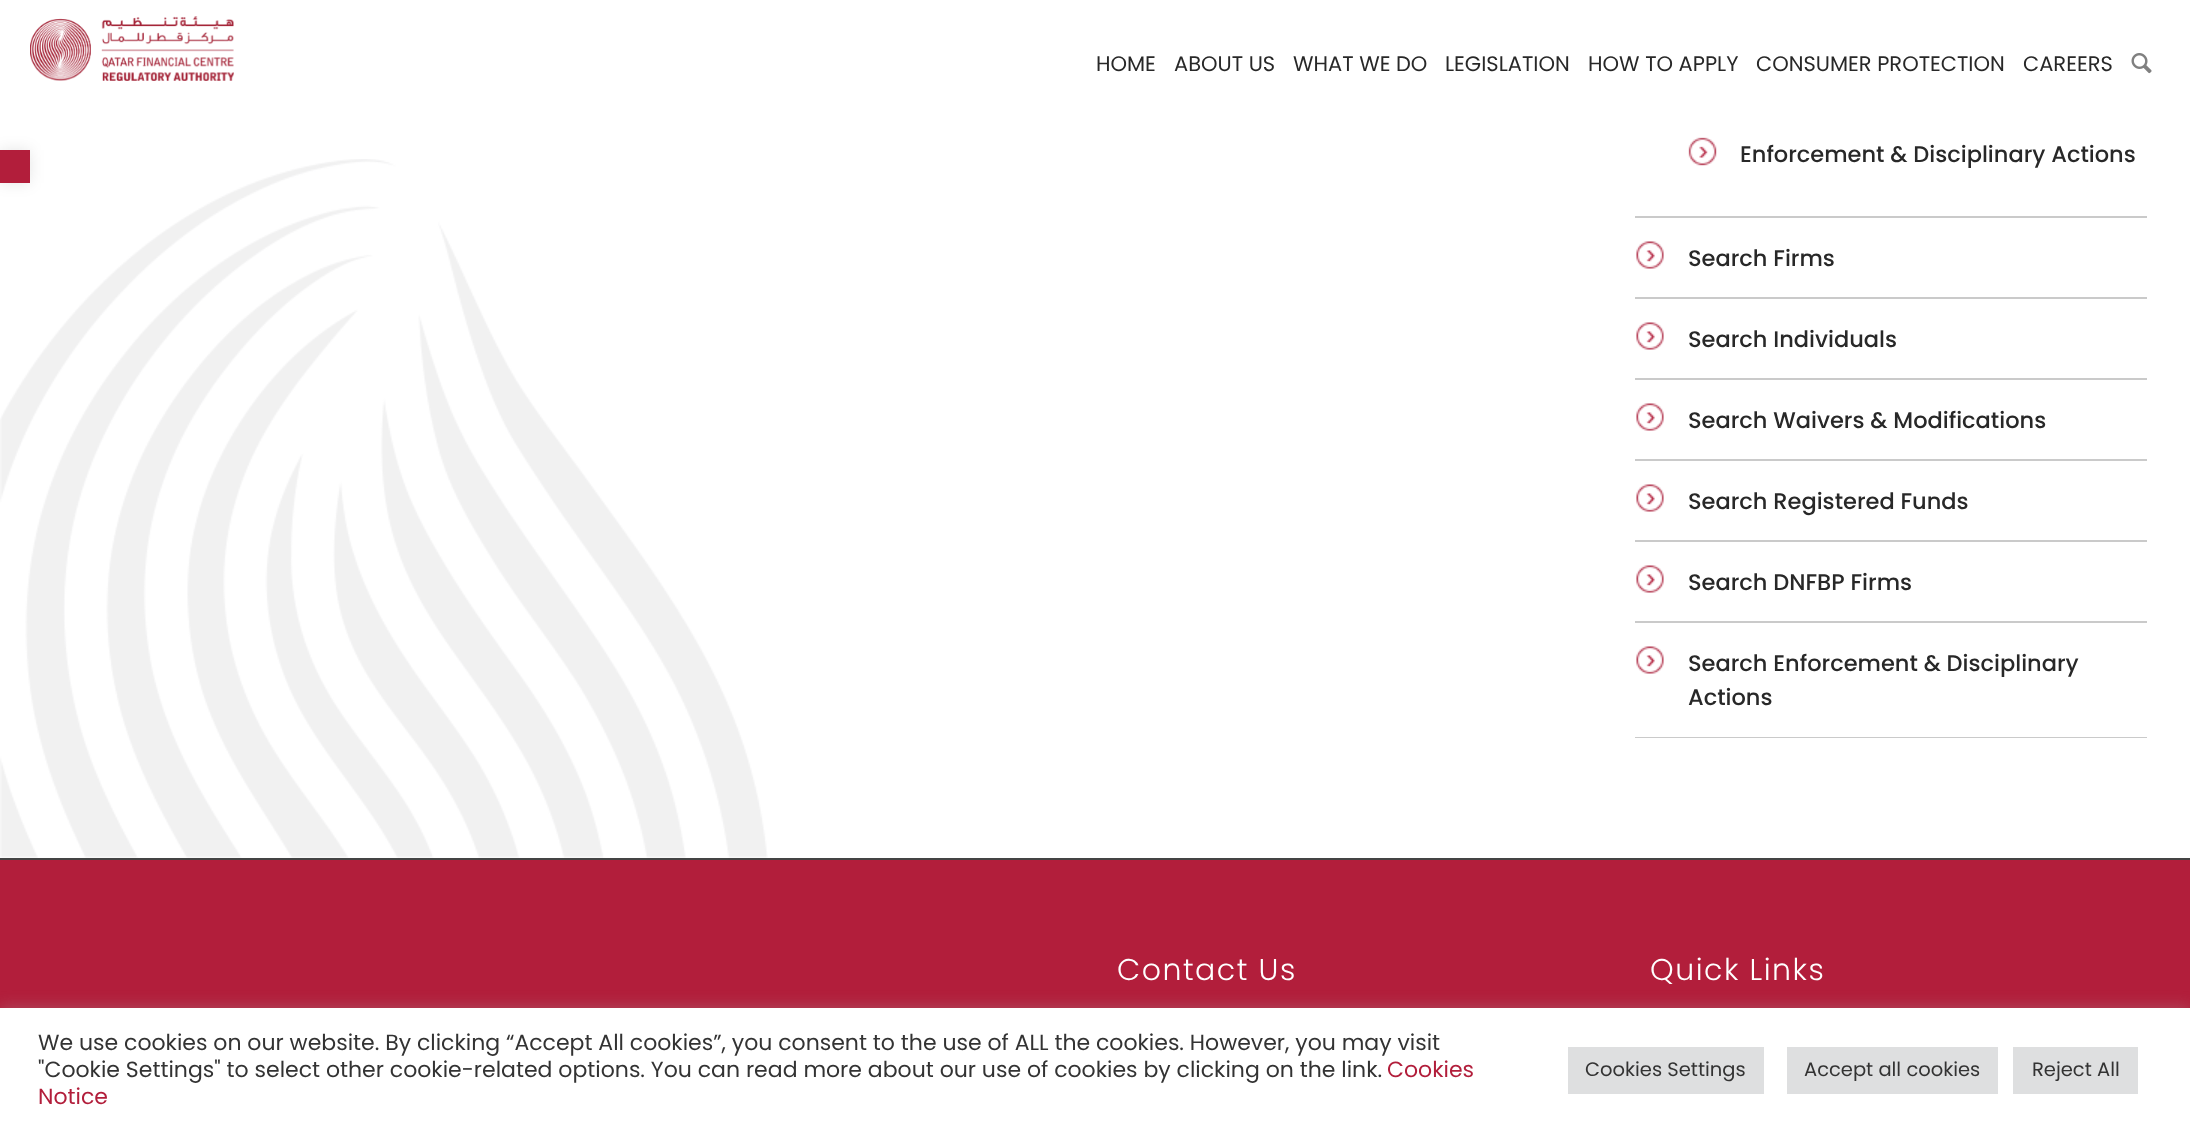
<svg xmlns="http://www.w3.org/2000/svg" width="2190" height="1130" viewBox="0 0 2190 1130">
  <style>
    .t1 { font: 21px Poppins; fill: #282828; }
    .t2 { font: 500 22.5px Poppins; fill: #282828; }
    .t3 { font: 300 30px Poppins; letter-spacing: 1.5px; fill: #fff; }
    .t4 { font: 22px Poppins; fill: #333; }
    .t5 { font: 22px Poppins; fill: #b21e3b; }
    .t6 { font: 19.5px Poppins; fill: #333; }
  </style>
  <rect width="100%" height="100%" fill="#fff"/>
  <image x="0" y="159" width="768" height="699" href="images/3.png"/>
  <rect x="0" y="150" width="30" height="33" fill="#0000001a" filter="blur(7.5px)"/>
  <rect x="0" y="150" width="30" height="33" fill="#b21e3b"/>
  <image x="30" y="16" width="204" height="65" href="images/1.png"/>
  <text x="1096" y="71" class="t1">HOME</text>
  <text x="1174" y="71" class="t1">ABOUT US</text>
  <text x="1293" y="71" class="t1">WHAT WE DO</text>
  <text x="1445" y="71" class="t1">LEGISLATION</text>
  <text x="1588" y="71" class="t1">HOW TO APPLY</text>
  <text x="1756" y="71" class="t1">CONSUMER PROTECTION</text>
  <text x="2023" y="71" class="t1">CAREERS</text>
  <image x="2131" y="53" width="21" height="21" href="images/2.png"/>
  <rect x="1635" y="216" width="512" height="2" fill="#cacaca"/>
  <image x="1688" y="137" width="29" height="29" href="images/4.png"/>
  <text x="1740" y="162" class="t2">Enforcement &amp; Disciplinary Actions</text>
  <rect x="1635" y="297" width="512" height="2" fill="#cacaca"/>
  <image x="1636" y="241" width="28" height="28" href="images/5.png"/>
  <text x="1688" y="266" class="t2">Search Firms</text>
  <rect x="1635" y="378" width="512" height="2" fill="#cacaca"/>
  <image x="1636" y="322" width="28" height="28" href="images/5.png"/>
  <text x="1688" y="347" class="t2">Search Individuals</text>
  <rect x="1635" y="459" width="512" height="2" fill="#cacaca"/>
  <image x="1636" y="403" width="28" height="28" href="images/5.png"/>
  <text x="1688" y="428" class="t2">Search Waivers &amp; Modifications</text>
  <rect x="1635" y="540" width="512" height="2" fill="#cacaca"/>
  <image x="1636" y="484" width="28" height="28" href="images/5.png"/>
  <text x="1688" y="509" class="t2">Search Registered Funds</text>
  <rect x="1635" y="621" width="512" height="2" fill="#cacaca"/>
  <image x="1636" y="565" width="28" height="28" href="images/5.png"/>
  <text x="1688" y="590" class="t2">Search DNFBP Firms</text>
  <rect x="1635" y="737" width="512" height="1" fill="#cacaca"/>
  <image x="1636" y="646" width="28" height="28" href="images/5.png"/>
  <text x="1688" y="671" class="t2">Search Enforcement &amp; Disciplinary</text>
  <text x="1688" y="705" class="t2">Actions</text>
  <rect x="0" y="860" width="2190" height="148" fill="#b21e3b"/>
  <rect x="0" y="858" width="2190" height="2" fill="#444"/>
  <text x="1117" y="980" class="t3">Contact Us</text>
  <text x="1650" y="980" class="t3">Quick Links</text>
  <rect x="0" y="1007" width="2190" height="123" fill="#acabab4d" filter="blur(7.5px)"/>
  <rect x="0" y="1008" width="2190" height="122" fill="#fff"/>
  <text x="38" y="1050" class="t4">We use cookies on our website. By clicking “Accept All cookies”, you consent to the use of ALL the cookies. However, you may visit</text>
  <text x="38" y="1077" class="t4">"Cookie Settings" to select other cookie-related options. You can read more about our use of cookies by clicking on the link.</text>
  <text x="1387" y="1077" class="t5">Cookies</text>
  <text x="38" y="1104" class="t5">Notice</text>
  <rect x="1568" y="1047" width="196" height="47" fill="#dedfe0"/>
  <text x="1585" y="1076" class="t6">Cookies Settings</text>
  <rect x="1787" y="1047" width="211" height="47" fill="#dedfe0"/>
  <text x="1804" y="1076" class="t6">Accept all cookies</text>
  <rect x="2013" y="1047" width="125" height="47" fill="#dedfe0"/>
  <text x="2032" y="1076" class="t6">Reject All</text>
</svg>
